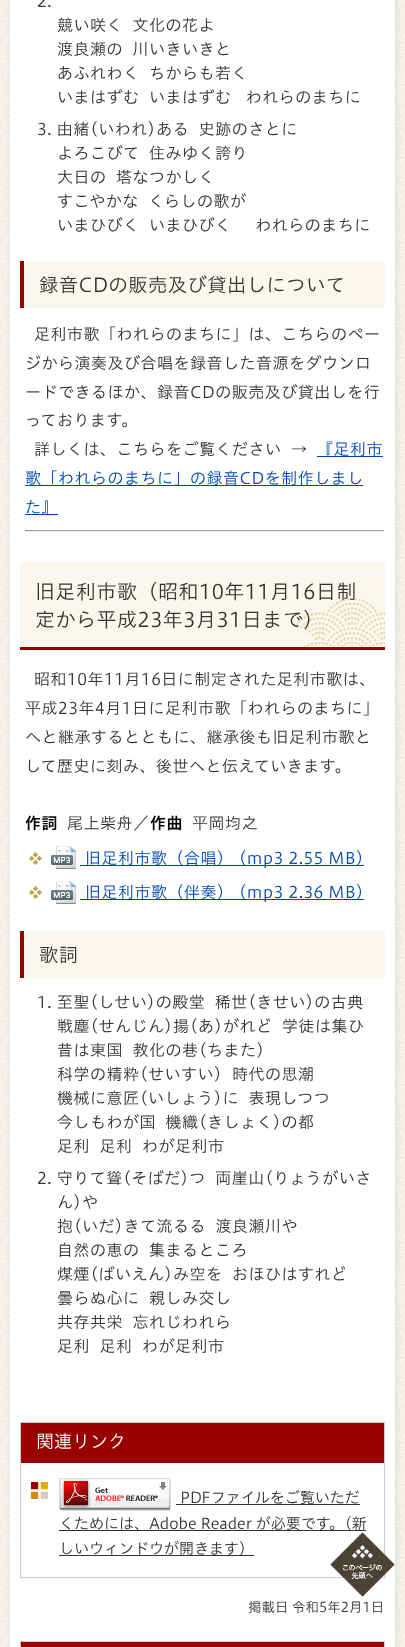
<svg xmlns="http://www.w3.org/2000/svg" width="405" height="1647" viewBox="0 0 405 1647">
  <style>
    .t1 { font: 300 16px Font; letter-spacing: 0.5px; fill: #333; }
    .t2 { font: 300 19.25px Font; letter-spacing: 0.5px; fill: #333; }
    .t3 { font: 300 16px Font; letter-spacing: 0.5px; fill: #0047b2; }
    .t4 { font: 300 20px Font; letter-spacing: 0.5px; fill: #333; }
    .t5 { font: 600 16px Font; letter-spacing: 0.5px; fill: #000; }
    .t6 { font: 300 18px Font; fill: #fff; }
    .t7 { font: 300 15px Font; fill: #333; }
    .t8 { font: 300 13.5px Font; fill: #333; }
  </style>
  <rect width="100%" height="100%" fill="#fff"/>
  <image x="0" y="0" width="405" height="1647" href="images/1.png"/>
  <rect x="11" y="-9" width="385" height="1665" fill="#0000001a" filter="blur(3px)"/>
  <rect x="10" y="0" width="385" height="1647" fill="#fff"/>
  <text x="37" y="7" class="t1">2.</text>
  <text x="57" y="31" class="t1" xml:space="preserve">競い咲く  文化の花よ</text>
  <text x="57" y="55" class="t1" xml:space="preserve">渡良瀬の  川いきいきと</text>
  <text x="57" y="79" class="t1" xml:space="preserve">あふれわく  ちからも若く</text>
  <text x="57" y="103" class="t1" xml:space="preserve">いまはずむ  いまはずむ   われらのまちに</text>
  <text x="37" y="135" class="t1" xml:space="preserve">3. 由緒(いわれ)ある  史跡のさとに</text>
  <text x="57" y="159" class="t1" xml:space="preserve">よろこびて  住みゆく誇り</text>
  <text x="57" y="183" class="t1" xml:space="preserve">大日の  塔なつかしく</text>
  <text x="57" y="207" class="t1" xml:space="preserve">すこやかな  くらしの歌が</text>
  <text x="57" y="231" class="t1" xml:space="preserve">いまひびく  いまひびく     われらのまちに</text>
  <rect x="24" y="261" width="361" height="47" fill="#faf7ed"/>
  <rect x="20" y="261" width="4" height="47" fill="#900"/>
  <text x="39" y="292" class="t2">録音CDの販売及び貸出しについて</text>
  <text x="34" y="340" class="t1">足利市歌「われらのまちに」は、こちらのペー</text>
  <text x="25" y="369" class="t1">ジから演奏及び合唱を録音した音源をダウンロ</text>
  <text x="25" y="398" class="t1">ードできるほか、録音CDの販売及び貸出しを行</text>
  <text x="25" y="426" class="t1">っております。</text>
  <text x="34" y="455" class="t1" xml:space="preserve">詳しくは、こちらをご覧ください  →</text>
  <rect x="317" y="456" width="66" height="1" fill="#0047b2"/>
  <text x="317" y="455" class="t3">『足利市</text>
  <rect x="25" y="485" width="338" height="1" fill="#0047b2"/>
  <text x="25" y="484" class="t3">歌「われらのまちに」の録音CDを制作しまし</text>
  <rect x="25" y="514" width="33" height="1" fill="#0047b2"/>
  <text x="25" y="513" class="t3">た』</text>
  <rect x="25" y="530" width="360" height="1" fill="#9f9f9f"/>
  <rect x="384" y="530" width="1" height="2" fill="#eee"/>
  <rect x="25" y="531" width="360" height="1" fill="#eee"/>
  <rect x="25" y="530" width="1" height="2" fill="#9f9f9f"/>
  <rect x="20" y="562" width="365" height="85" fill="#faf7ed"/>
  <rect x="20" y="647" width="365" height="3" fill="#900"/>
  <text x="35" y="599" class="t4">旧足利市歌（昭和10年11月16日制</text>
  <text x="35" y="627" class="t4">定から平成23年3月31日まで）</text>
  <image x="295" y="598" width="90" height="49" href="images/2.png"/>
  <text x="34" y="685" class="t1">昭和10年11月16日に制定された足利市歌は、</text>
  <text x="25" y="714" class="t1">平成23年4月1日に足利市歌「われらのまちに」</text>
  <text x="25" y="743" class="t1">へと継承するとともに、継承後も旧足利市歌と</text>
  <text x="25" y="772" class="t1">して歴史に刻み、後世へと伝えていきます。</text>
  <text x="25" y="829" class="t5">作詞</text>
  <text x="67" y="829" class="t1">尾上柴舟／</text>
  <text x="150" y="829" class="t5">作曲</text>
  <text x="192" y="829" class="t1">平岡均之</text>
  <image x="29" y="852" width="13" height="13" href="images/3.png"/>
  <image x="51" y="846" width="26" height="23" href="images/4.png"/>
  <rect x="80" y="865" width="284" height="1" fill="#0047b2"/>
  <text x="85" y="864" class="t3">旧足利市歌（合唱） (mp3 2.55 MB)</text>
  <image x="29" y="886" width="13" height="13" href="images/3.png"/>
  <image x="51" y="881" width="26" height="23" href="images/4.png"/>
  <rect x="80" y="899" width="284" height="1" fill="#0047b2"/>
  <text x="85" y="898" class="t3">旧足利市歌（伴奏） (mp3 2.36 MB)</text>
  <rect x="24" y="931" width="361" height="47" fill="#faf7ed"/>
  <rect x="20" y="931" width="4" height="47" fill="#900"/>
  <text x="39" y="962" class="t2">歌詞</text>
  <text x="37" y="1008" class="t1" xml:space="preserve">1. 至聖(しせい)の殿堂  稀世(きせい)の古典</text>
  <text x="57" y="1032" class="t1" xml:space="preserve">戦塵(せんじん)揚(あ)がれど  学徒は集ひ</text>
  <text x="57" y="1056" class="t1" xml:space="preserve">昔は東国  教化の巷(ちまた)</text>
  <text x="57" y="1080" class="t1" xml:space="preserve">科学の精粋(せいすい)  時代の思潮</text>
  <text x="57" y="1104" class="t1" xml:space="preserve">機械に意匠(いしょう)に  表現しつつ</text>
  <text x="57" y="1128" class="t1" xml:space="preserve">今しもわが国  機織(きしょく)の都</text>
  <text x="57" y="1152" class="t1" xml:space="preserve">足利  足利  わが足利市</text>
  <text x="37" y="1184" class="t1" xml:space="preserve">2. 守りて聳(そばだ)つ  両崖山(りょうがいさ</text>
  <text x="57" y="1208" class="t1">ん)や</text>
  <text x="57" y="1232" class="t1" xml:space="preserve">抱(いだ)きて流るる  渡良瀬川や</text>
  <text x="57" y="1256" class="t1" xml:space="preserve">自然の恵の  集まるところ</text>
  <text x="57" y="1280" class="t1" xml:space="preserve">煤煙(ばいえん)み空を  おほひはすれど</text>
  <text x="57" y="1304" class="t1" xml:space="preserve">曇らぬ心に  親しみ交し</text>
  <text x="57" y="1328" class="t1" xml:space="preserve">共存共栄  忘れじわれら</text>
  <text x="57" y="1352" class="t1" xml:space="preserve">足利  足利  わが足利市</text>
  <rect x="20.5" y="1422.5" width="364" height="155" fill="none" stroke="#ccc"/>
  <rect x="21" y="1423" width="363" height="40" fill="#900"/>
  <text x="36" y="1448" class="t6">関連リンク</text>
  <image x="31" y="1482" width="17" height="17" href="images/5.png"/>
  <image x="59" y="1478" width="112" height="33" href="images/6.png"/>
  <text x="180" y="1503" class="t7">PDFファイルをご覧いただ</text>
  <rect x="176" y="1504" width="184" height="1" fill="#333"/>
  <rect x="59" y="1530" width="307" height="1" fill="#333"/>
  <text x="59" y="1529" class="t7">くためには、Adobe Reader が必要です。（新</text>
  <rect x="59" y="1555" width="195" height="1" fill="#333"/>
  <text x="59" y="1554" class="t7">しいウィンドウが開きます）</text>
  <text x="248" y="1612" class="t8">掲載日 令和5年2月1日</text>
  <rect x="20.5" y="1641.5" width="364" height="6" fill="none" stroke="#ccc"/>
  <rect x="21" y="1642" width="363" height="5" fill="#900"/>
  <image x="330" y="1532" width="65" height="65" href="images/7.png"/>
</svg>
